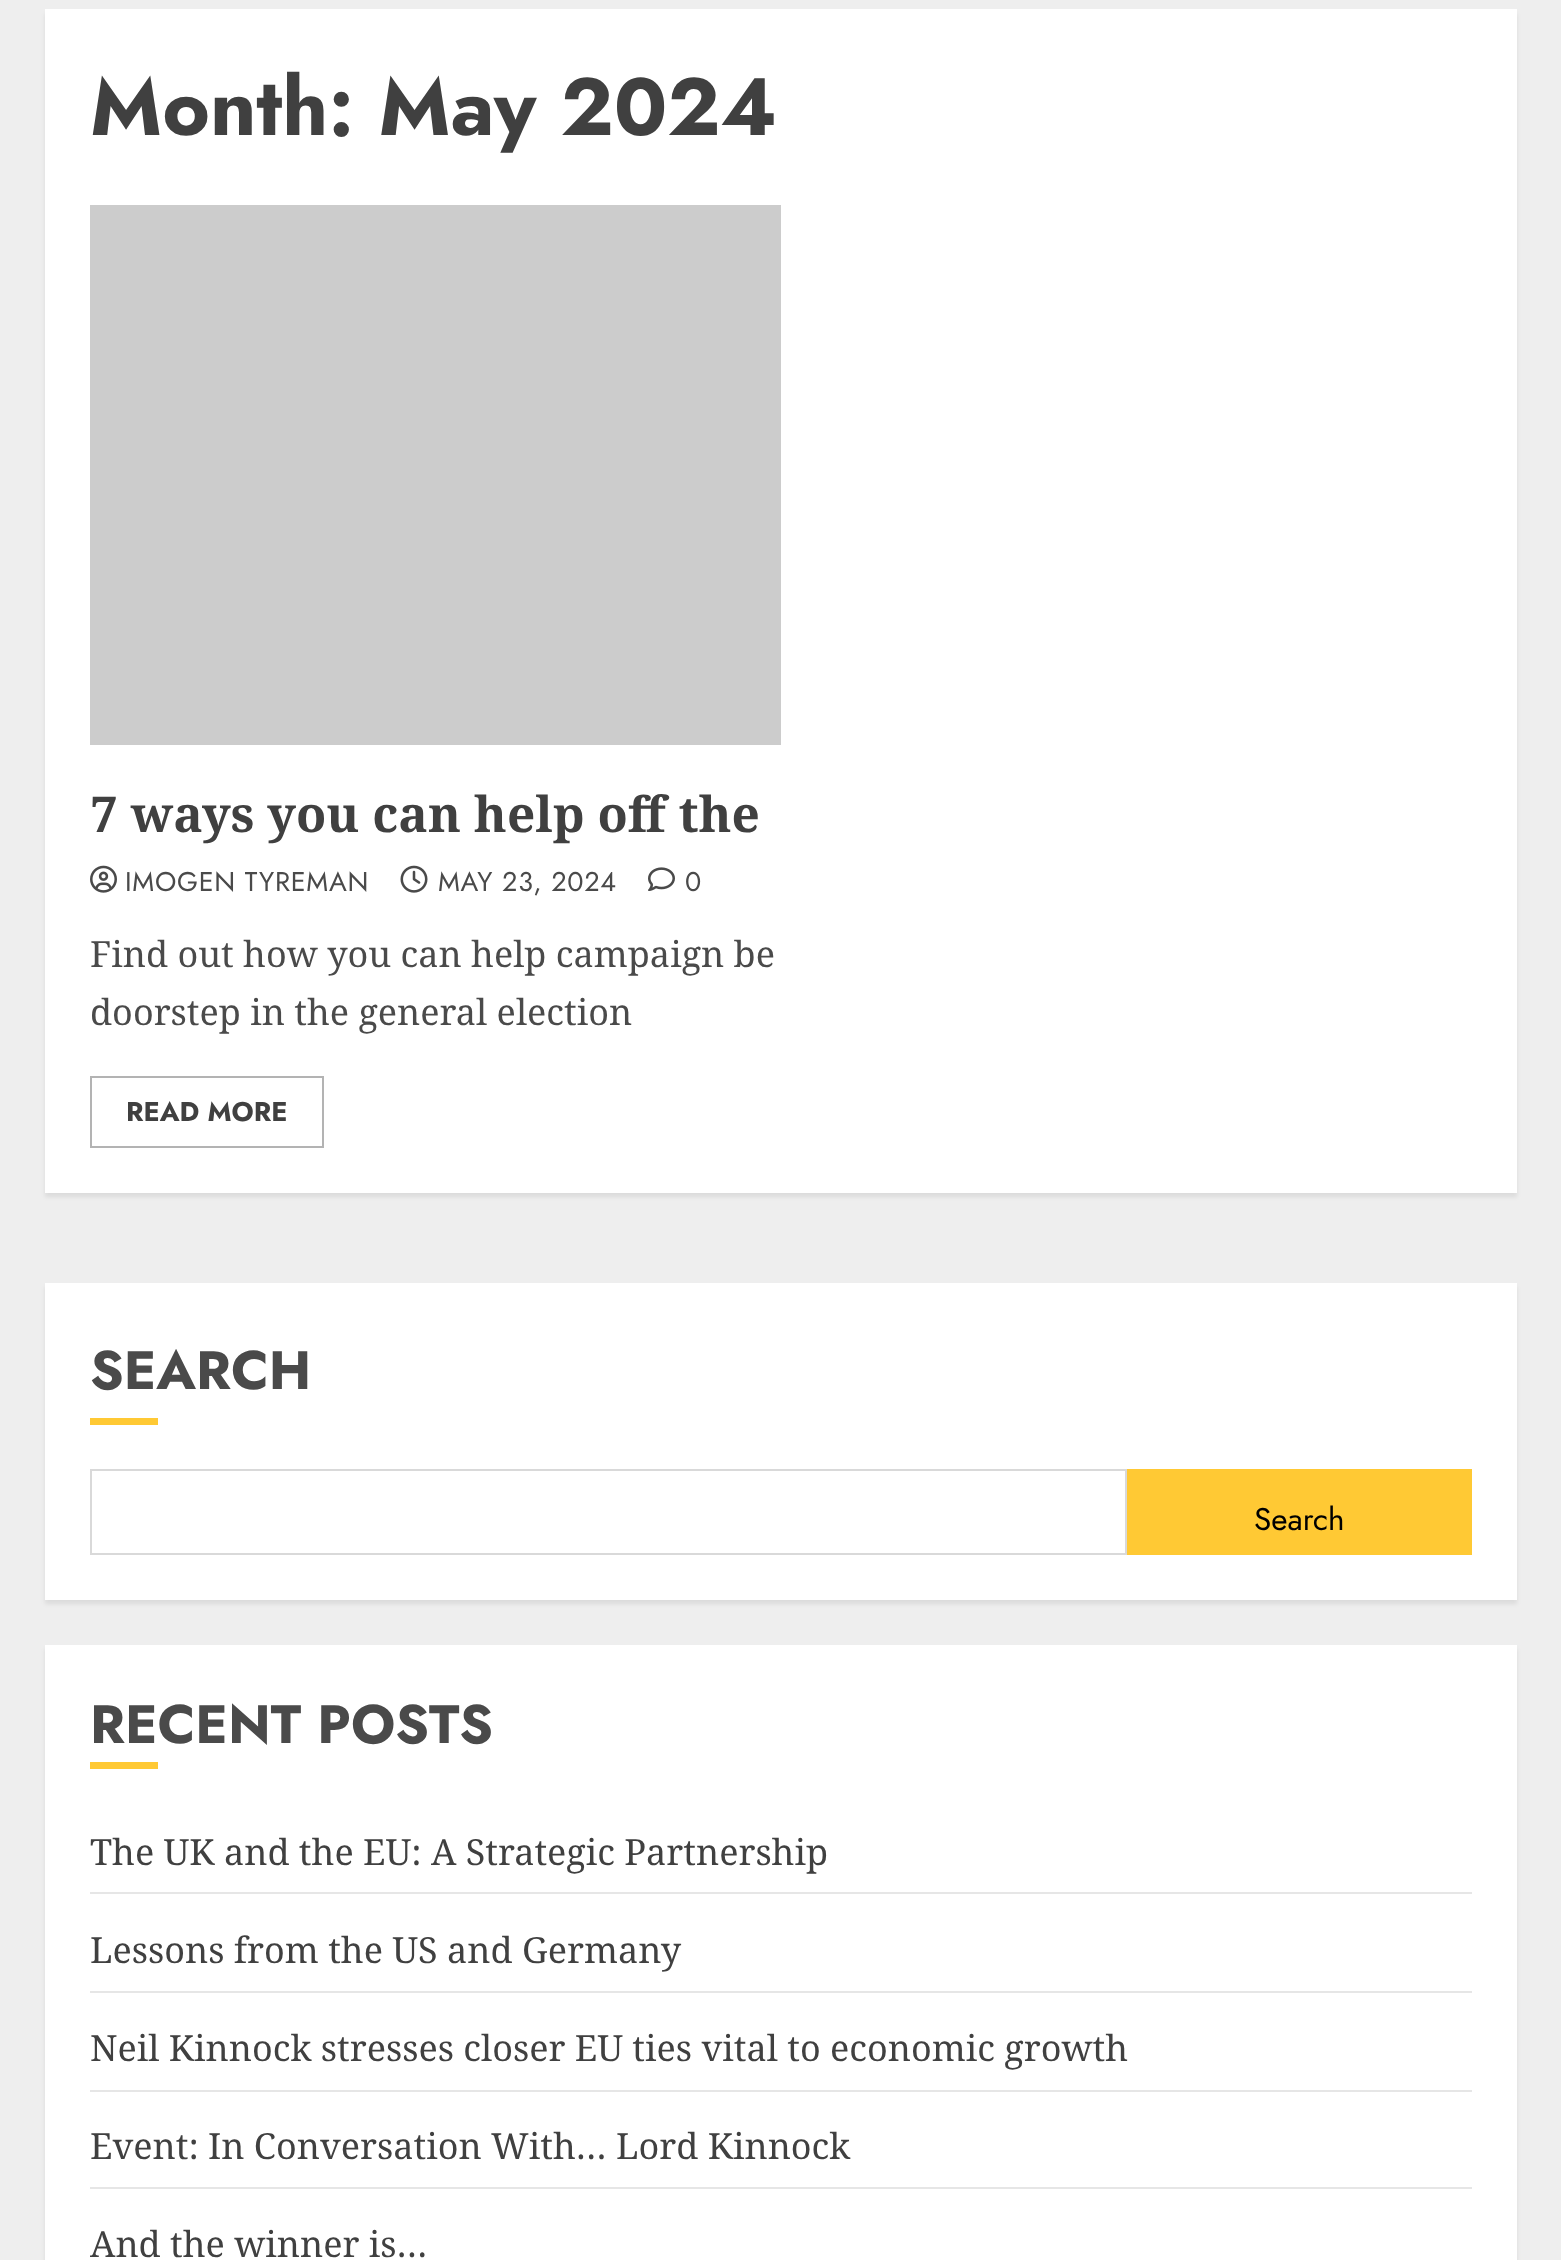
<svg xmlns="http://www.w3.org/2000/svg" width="1561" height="2260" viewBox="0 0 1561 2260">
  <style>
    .t1 { font: bold 81px Jost; fill: #404040; }
    .t2 { font: bold 49.5px Noto Serif; fill: #404040; }
    .t3 { font: 27px Jost; letter-spacing: 0.75px; fill: #4a4a4a; }
    .t4 { font: 36px Noto Serif; fill: #4a4a4a; }
    .t5 { font: bold 27px Jost; fill: #404040; }
    .t6 { font: bold 54px Jost; fill: #4a4a4a; }
    .t7 { font: 31.5px Jost; fill: #000; }
    .t8 { font: 36px Noto Serif; fill: #404040; }
  </style>
  <rect width="100%" height="100%" fill="#eee"/>
  <rect x="45" y="14" width="1472" height="1183" fill="#00000014" filter="blur(2px)"/>
  <rect x="45" y="9" width="1472" height="1184" fill="#fff"/>
  <text x="90" y="135" class="t1">Month: May 2024</text>
  <rect x="90" y="205" width="691" height="540" fill="#ccc"/>
  <text x="90" y="832" class="t2">7 ways you can help off the</text>
  <image x="90" y="865" width="27" height="28" href="images/1.png"/>
  <text x="125" y="891" class="t3">IMOGEN TYREMAN</text>
  <image x="400" y="865" width="28" height="28" href="images/2.png"/>
  <text x="438" y="891" class="t3">MAY 23, 2024</text>
  <image x="648" y="867" width="27" height="24" href="images/3.png"/>
  <text x="685" y="891" class="t3">0</text>
  <text x="90" y="967" class="t4">Find out how you can help campaign be</text>
  <text x="90" y="1025" class="t4">doorstep in the general election</text>
  <rect x="91" y="1077" width="232" height="70" fill="none" stroke="#b3b3b3" stroke-width="2"/>
  <text x="126" y="1121" class="t5">READ MORE</text>
  <rect x="45" y="1287" width="1472" height="317" fill="#00000014" filter="blur(2px)"/>
  <rect x="45" y="1283" width="1472" height="317" fill="#fff"/>
  <text x="90" y="1389" class="t6">SEARCH</text>
  <rect x="90" y="1418" width="68" height="7" fill="#ffc934"/>
  <rect x="91" y="1470" width="1035" height="84" fill="none" stroke="#d9d9d9" stroke-width="2"/>
  <rect x="1127" y="1469" width="345" height="86" fill="#ffc934"/>
  <text x="1254" y="1530" class="t7">Search</text>
  <rect x="45" y="1649" width="1472" height="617" fill="#00000014" filter="blur(2px)"/>
  <rect x="45" y="1645" width="1472" height="615" fill="#fff"/>
  <text x="90" y="1743" class="t6">RECENT POSTS</text>
  <rect x="90" y="1762" width="68" height="7" fill="#ffc934"/>
  <rect x="90" y="1892" width="1382" height="2" fill="#e6e6e6"/>
  <text x="90" y="1865" class="t8">The UK and the EU: A Strategic Partnership</text>
  <rect x="90" y="1991" width="1382" height="2" fill="#e6e6e6"/>
  <text x="90" y="1963" class="t8">Lessons from the US and Germany</text>
  <rect x="90" y="2090" width="1382" height="2" fill="#e6e6e6"/>
  <text x="90" y="2061" class="t8">Neil Kinnock stresses closer EU ties vital to economic growth</text>
  <rect x="90" y="2187" width="1382" height="2" fill="#e6e6e6"/>
  <text x="90" y="2159" class="t8">Event: In Conversation With… Lord Kinnock</text>
  <text x="90" y="2257" class="t8">And the winner is…</text>
</svg>
